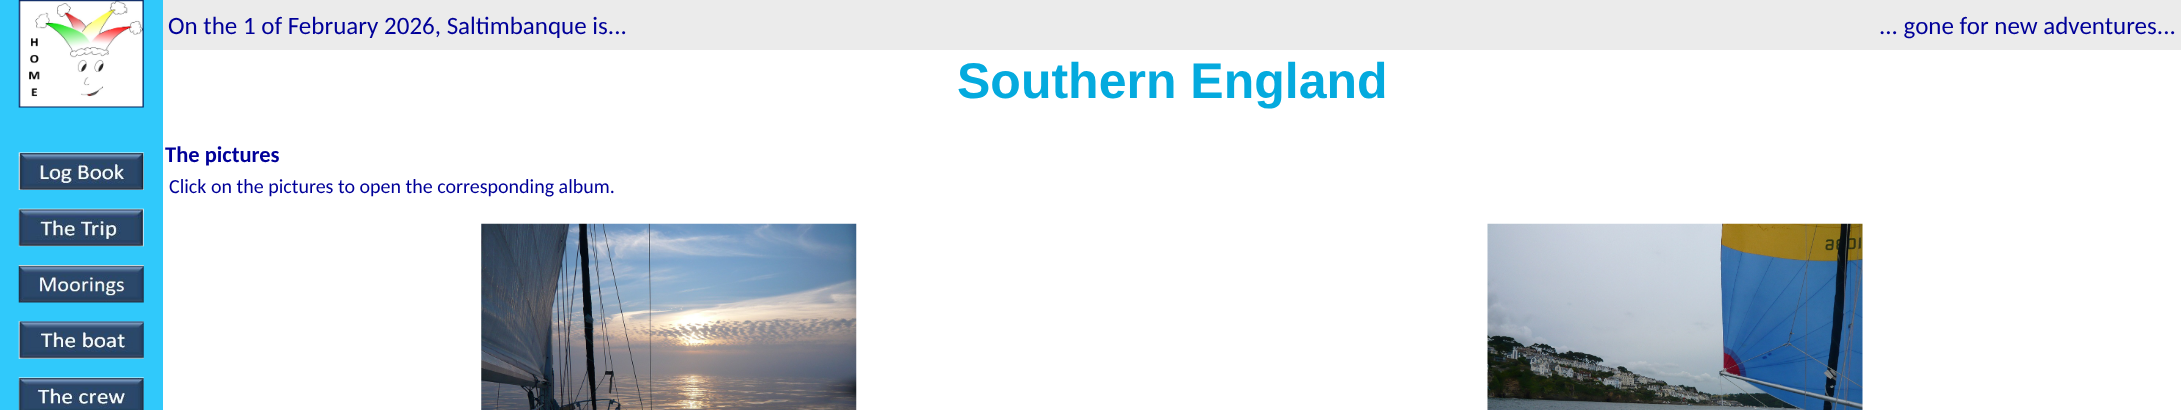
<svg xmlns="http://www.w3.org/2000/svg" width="2181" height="410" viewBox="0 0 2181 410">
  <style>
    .t1 { font: 25px Carlito; fill: #009; }
    .t2 { font: bold 50px Liberation Sans; fill: #04aade; }
    .t3 { font: bold 22.5px Carlito; fill: #009; }
    .t4 { font: 20px Carlito; fill: #009; }
  </style>
  <rect width="100%" height="100%" fill="#fff"/>
  <rect x="0" y="0" width="163" height="410" fill="#30c9fb"/>
  <image x="18" y="0" width="126" height="108" href="images/1.png"/>
  <image x="18" y="152" width="126" height="38" href="images/2.png"/>
  <image x="18" y="208" width="126" height="39" href="images/3.png"/>
  <image x="18" y="265" width="126" height="38" href="images/4.png"/>
  <image x="18" y="321" width="126" height="38" href="images/5.png"/>
  <image x="18" y="377" width="126" height="33" href="images/6.png"/>
  <rect x="163" y="0" width="2018" height="50" fill="#ebebeb"/>
  <text x="168" y="34" class="t1">On the 1 of February 2026, Saltimbanque is...</text>
  <text x="1879" y="34" class="t1">... gone for new adventures...</text>
  <text x="957" y="98" class="t2">Southern England</text>
  <text x="165" y="162" class="t3">The pictures</text>
  <text x="169" y="193" class="t4">Click on the pictures to open the corresponding album.</text>
  <image x="481" y="223" width="376" height="187" href="images/7.png"/>
  <image x="1487" y="223" width="376" height="187" href="images/8.png"/>
</svg>
